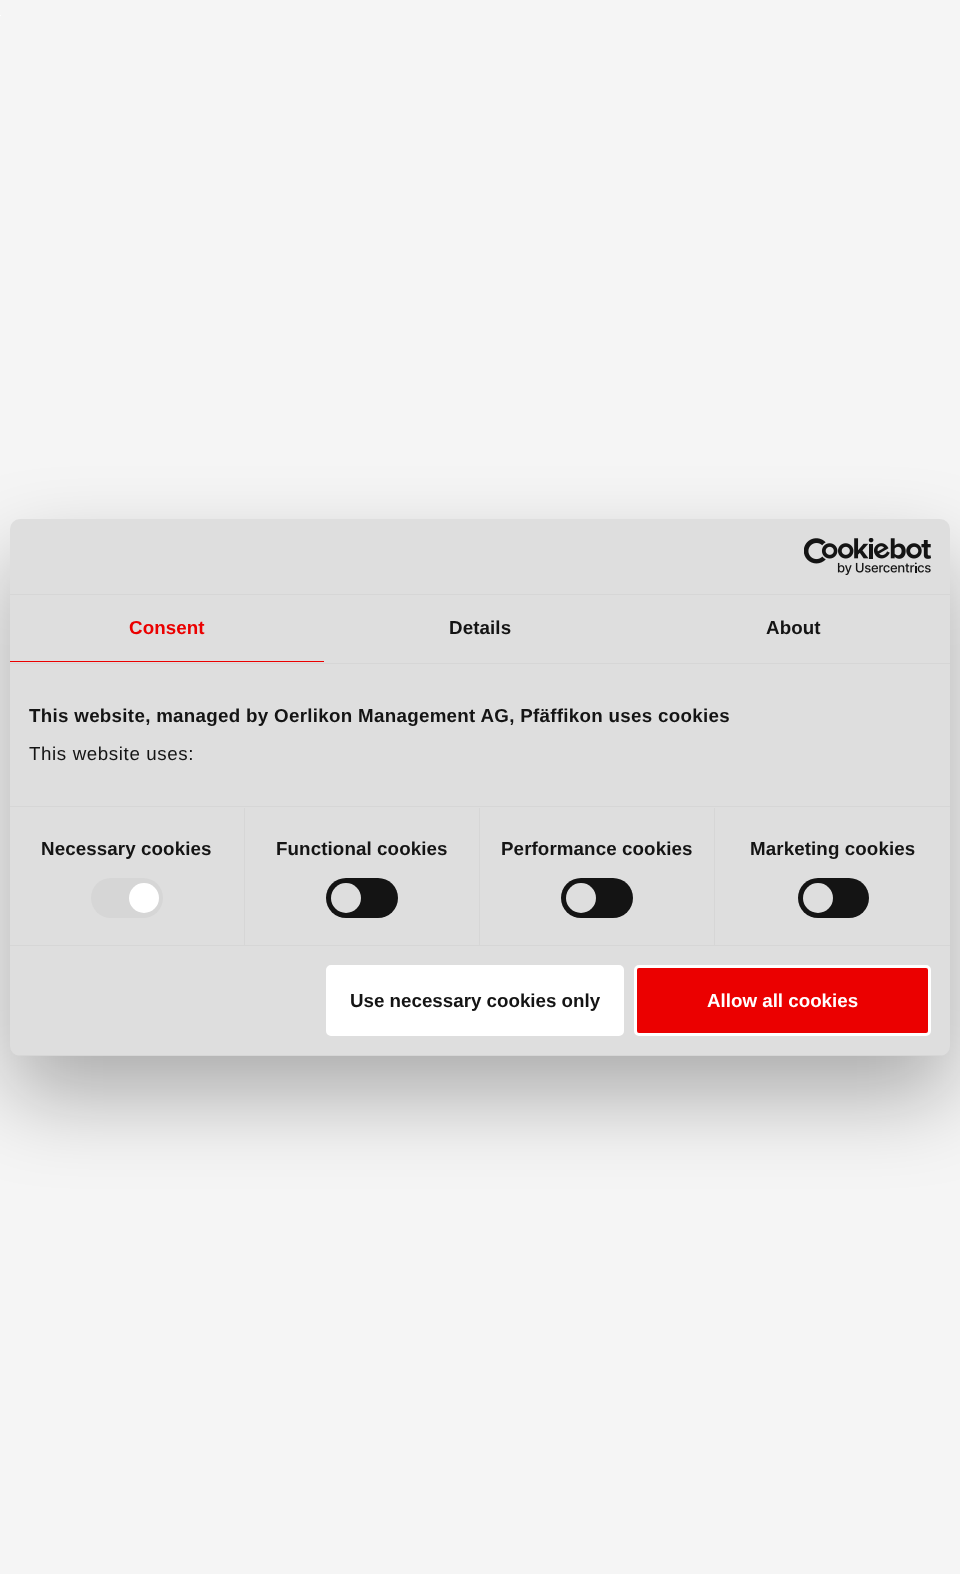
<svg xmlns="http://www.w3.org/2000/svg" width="960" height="1574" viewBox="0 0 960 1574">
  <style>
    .t1 { font: bold 18.75px Liberation Sans; letter-spacing: 0.1px; fill: #eb0000; }
    .t2 { font: bold 18.75px Liberation Sans; letter-spacing: 0.1px; fill: #141414; }
    .t3 { font: bold 18.75px Liberation Sans; letter-spacing: 0.3px; fill: #141414; }
    .t4 { font: 18.75px Liberation Sans; letter-spacing: 0.6px; fill: #141414; }
    .t5 { font: bold 18.75px Liberation Sans; fill: #141414; }
    .t6 { font: bold 18.75px Liberation Sans; fill: #fff; }
  </style>
  <defs>
    <clipPath id="clip1"><rect x="10" y="519" width="940" height="537" rx="10"/></clipPath>
  </defs>
  <rect width="100%" height="100%" fill="#f5f5f5"/>
  <rect x="0" y="15" width="1" height="1" fill="#fff"/>
  <rect x="10" y="559" width="940" height="537" rx="10" fill="#0000004d" filter="blur(42.5px)"/>
  <rect x="10" y="519" width="940" height="537" rx="10" fill="#dedede"/>
  <rect x="10" y="594" width="940" height="1" fill="#d6d6d6"/>
  <image x="804" y="538" width="127" height="37" href="images/1.png"/>
  <rect x="10" y="663" width="940" height="1" fill="#d6d6d6"/>
  <rect x="10" y="661" width="314" height="1" fill="#eb0000"/>
  <text x="129" y="634" class="t1">Consent</text>
  <text x="449" y="634" class="t2">Details</text>
  <text x="766" y="634" class="t2">About</text>
  <rect x="10" y="806" width="940" height="1" fill="#d6d6d6"/>
  <text x="29" y="722" class="t3">This website, managed by Oerlikon Management AG, Pfäffikon uses cookies</text>
  <text x="29" y="760" class="t4">This website uses:</text>
  <rect x="10" y="945" width="940" height="1" fill="#d6d6d6"/>
  <rect x="244" y="808" width="1" height="137" fill="#d6d6d6"/>
  <text x="41" y="855" class="t2">Necessary cookies</text>
  <rect x="91" y="878" width="72" height="40" rx="20" fill="#d6d6d6"/>
  <circle cx="144" cy="898" r="15" fill="#fff"/>
  <rect x="479" y="808" width="1" height="137" fill="#d6d6d6"/>
  <text x="276" y="855" class="t2">Functional cookies</text>
  <rect x="326" y="878" width="72" height="40" rx="20" fill="#141414"/>
  <circle cx="346" cy="898" r="15" fill="#dedede"/>
  <rect x="714" y="808" width="1" height="137" fill="#d6d6d6"/>
  <text x="501" y="855" class="t2">Performance cookies</text>
  <rect x="561" y="878" width="72" height="40" rx="20" fill="#141414"/>
  <circle cx="581" cy="898" r="15" fill="#dedede"/>
  <text x="750" y="855" class="t2">Marketing cookies</text>
  <rect x="798" y="878" width="71" height="40" rx="20" fill="#141414"/>
  <circle cx="818" cy="898" r="15" fill="#dedede"/>
  <g clip-path="url(#clip1)">
    <rect x="10" y="1055" width="940" height="1" fill="#d6d6d6"/>
  </g>
  <rect x="327.5" y="966.5" width="295" height="68" rx="3.5" fill="#fff" stroke="#fff" stroke-width="3"/>
  <text x="350" y="1007" class="t5">Use necessary cookies only</text>
  <rect x="635.5" y="966.5" width="294" height="68" rx="3.5" fill="#eb0000" stroke="#fff" stroke-width="3"/>
  <text x="707" y="1007" class="t6">Allow all cookies</text>
</svg>
